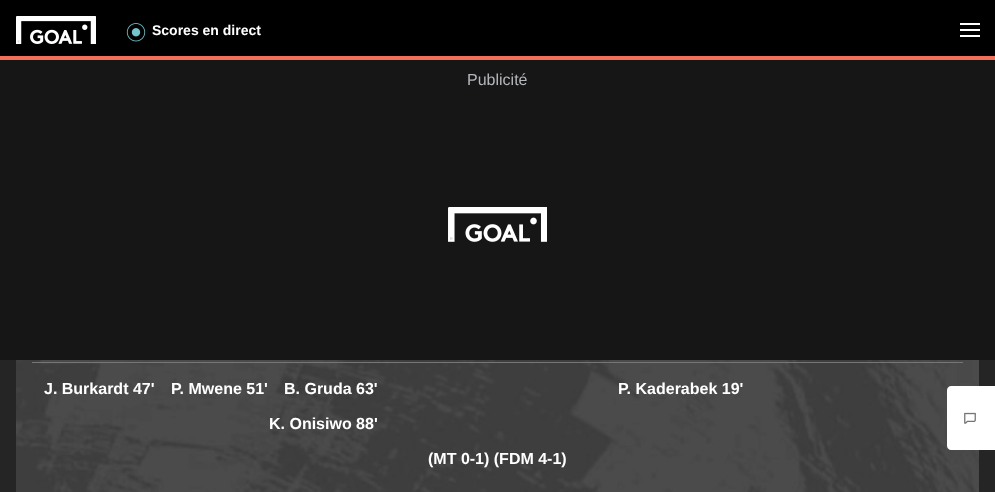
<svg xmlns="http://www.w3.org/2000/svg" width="995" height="492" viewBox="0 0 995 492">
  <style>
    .t1 { font: bold 14px Liberation Sans; fill: #fff; }
    .t2 { font: 16px Liberation Sans; fill: #b5b6ba; }
    .t3 { font: bold 16px Liberation Sans; fill: #fff; }
  </style>
  <rect width="100%" height="100%" fill="#252525"/>
  <rect x="0" y="0" width="995" height="56" fill="#000"/>
  <rect x="0" y="56" width="995" height="4" fill="#f0705a"/>
  <image x="16" y="16" width="80" height="28" href="images/1.png"/>
  <image x="126" y="23" width="20" height="19" href="images/2.png"/>
  <text x="152" y="35" class="t1">Scores en direct</text>
  <rect x="960" y="23" width="20" height="2" fill="#fff"/>
  <rect x="960" y="29" width="20" height="2" fill="#fff"/>
  <rect x="960" y="35" width="20" height="2" fill="#fff"/>
  <rect x="0" y="60" width="995" height="300" fill="#161617"/>
  <text x="467" y="85" class="t2">Publicité</text>
  <image x="448" y="207" width="99" height="35" href="images/3.png"/>
  <image x="16" y="360" width="963" height="132" href="images/4.png"/>
  <rect x="32" y="362" width="931" height="1" fill="#767676"/>
  <text x="44" y="394" class="t3">J. Burkardt 47'</text>
  <text x="171" y="394" class="t3">P. Mwene 51'</text>
  <text x="284" y="394" class="t3">B. Gruda 63'</text>
  <text x="269" y="429" class="t3">K. Onisiwo 88'</text>
  <text x="618" y="394" class="t3">P. Kaderabek 19'</text>
  <text x="428" y="464" class="t3">(MT 0-1) (FDM 4-1)</text>
  <path d="M951 386H995V450H951C949 450 947 448 947 446V390C947 388 949 386 951 386Z" fill="#fff"/>
  <image x="964" y="412" width="12" height="12" href="images/5.png"/>
</svg>
